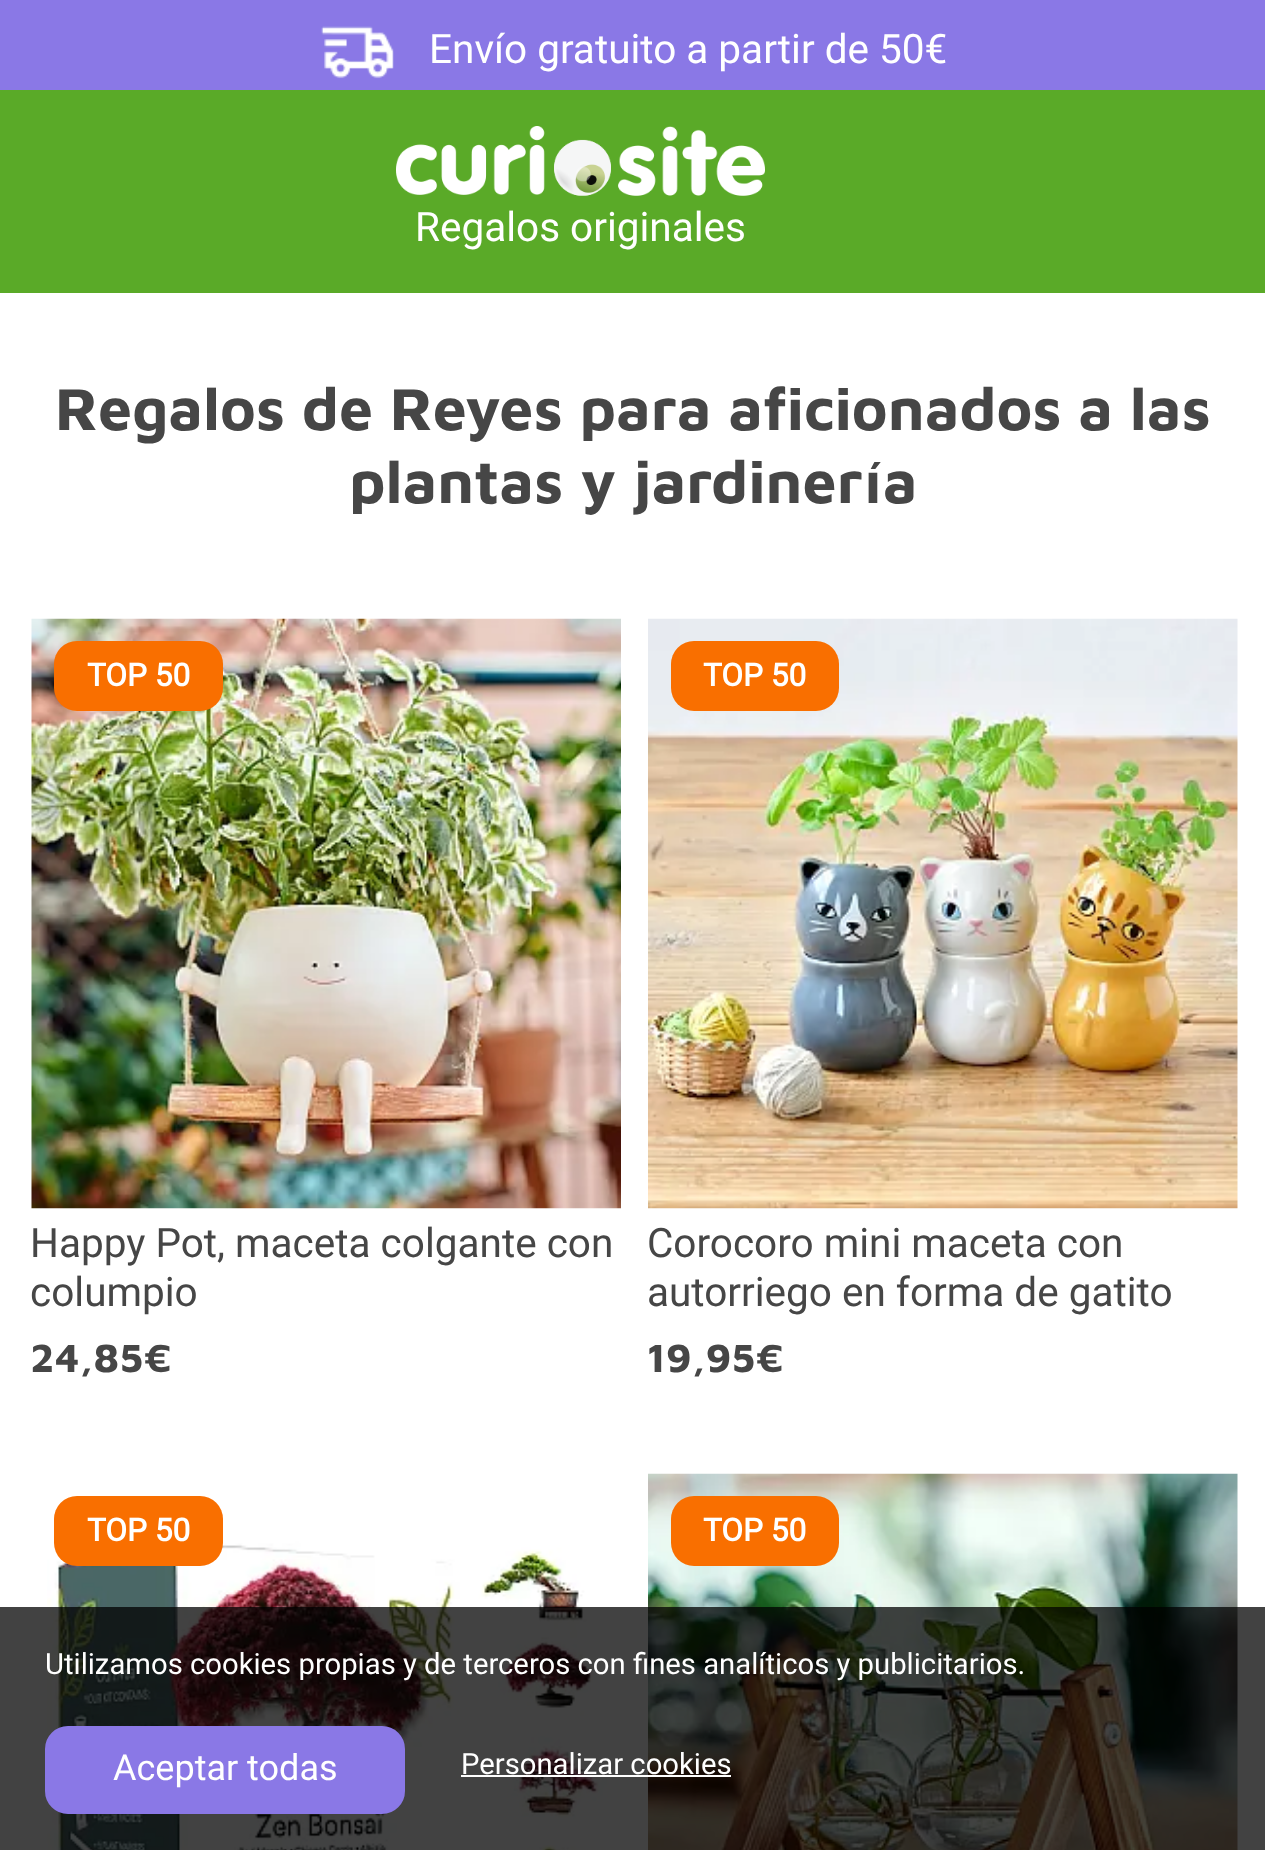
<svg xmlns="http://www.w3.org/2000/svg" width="1265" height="1850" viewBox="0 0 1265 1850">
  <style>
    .t1 { font: 40.5px Roboto; fill: #fff; }
    .t2 { font: bold 60.75px Maven Pro; fill: #464646; }
    .t3 { font: bold 31.5px Roboto; fill: #fff; }
    .t4 { font: 40.5px Roboto; fill: #464646; }
    .t5 { font: bold 40.5px Maven Pro; fill: #464646; }
    .t6 { font: 29.25px Roboto; fill: #fff; }
    .t7 { font: 36px Roboto; fill: #fff; }
  </style>
  <rect width="100%" height="100%" fill="#fff"/>
  <rect x="0" y="0" width="1265" height="90" fill="#8a78e6"/>
  <image x="321" y="26" width="73" height="53" href="images/1.png"/>
  <text x="429" y="63" class="t1">Envío gratuito a partir de 50€</text>
  <rect x="0" y="90" width="1265" height="203" fill="#5aaa28"/>
  <image x="396" y="126" width="369" height="70" href="images/2.png"/>
  <text x="415" y="241" class="t1">Regalos originales</text>
  <text x="55" y="430" class="t2">Regalos de Reyes para aficionados a las</text>
  <text x="349" y="503" class="t2">plantas y jardinería</text>
  <image x="31" y="618" width="590" height="591" href="images/3.png"/>
  <rect x="54" y="641" width="169" height="70" rx="23" fill="#f96f00"/>
  <text x="87" y="686" class="t3">TOP 50</text>
  <text x="30" y="1257" class="t4">Happy Pot, maceta colgante con</text>
  <text x="30" y="1306" class="t4">columpio</text>
  <text x="30" y="1372" class="t5">24,85€</text>
  <image x="648" y="618" width="590" height="591" href="images/4.png"/>
  <rect x="671" y="641" width="168" height="70" rx="23" fill="#f96f00"/>
  <text x="703" y="686" class="t3">TOP 50</text>
  <text x="647" y="1257" class="t4">Corocoro mini maceta con</text>
  <text x="647" y="1306" class="t4">autorriego en forma de gatito</text>
  <text x="647" y="1372" class="t5">19,95€</text>
  <image x="47" y="1536" width="560" height="314" href="images/5.png"/>
  <rect x="54" y="1496" width="169" height="70" rx="23" fill="#f96f00"/>
  <text x="87" y="1541" class="t3">TOP 50</text>
  <image x="648" y="1473" width="590" height="377" href="images/6.png"/>
  <rect x="671" y="1496" width="168" height="70" rx="23" fill="#f96f00"/>
  <text x="703" y="1541" class="t3">TOP 50</text>
  <rect x="0" y="1607" width="1265" height="243" fill="#000000bd"/>
  <text x="45" y="1674" class="t6">Utilizamos cookies propias y de terceros con fines analíticos y publicitarios.</text>
  <rect x="46" y="1727" width="358" height="86" rx="22" fill="#8a78e6" stroke="#8a78e6" stroke-width="2"/>
  <text x="113" y="1780" class="t7">Aceptar todas</text>
  <text x="461" y="1774" class="t6">Personalizar cookies</text>
  <rect x="461" y="1775" width="270" height="2" fill="#fff"/>
</svg>
